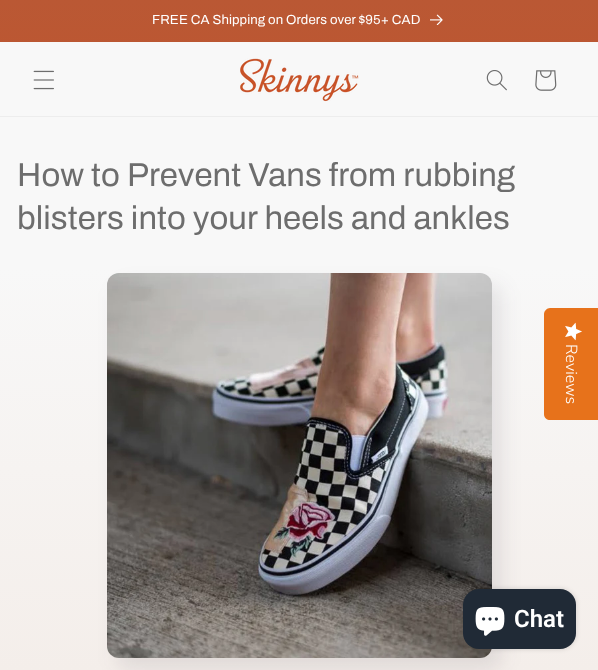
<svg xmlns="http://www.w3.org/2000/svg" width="598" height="670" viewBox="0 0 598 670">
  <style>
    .t1 { font: 13.2px Archivo; letter-spacing: 0.1px; fill: #fff; }
    .t2 { font: 33px Archivo; letter-spacing: 0.1px; fill: #6d6d6d; }
    .t3 { font: 300 16px Nunito Sans; letter-spacing: 0.1px; fill: #fff; }
    .t4 { font: 600 24px Roboto; fill: #fff; }
  </style>
  <defs>
    <linearGradient id="g1" gradientUnits="userSpaceOnUse" x1="299" y1="0" x2="299" y2="670"><stop offset="0.4" stop-color="#f8f8f8"/><stop offset="1" stop-color="#f4eeea"/></linearGradient>
    <linearGradient id="g2" gradientUnits="userSpaceOnUse" x1="299" y1="0" x2="299" y2="670"><stop offset="0" stop-color="#ba5834"/><stop offset="1" stop-color="#ce4b1b"/></linearGradient>
  </defs>
  <rect width="100%" height="100%" fill="#fff"/>
  <rect x="0" y="42" width="598" height="628" fill="url(#g1)"/>
  <rect x="0" y="0" width="598" height="42" fill="url(#g2)"/>
  <text x="152" y="24" class="t1">FREE CA Shipping on Orders over $95+ CAD</text>
  <image x="430" y="14" width="13" height="11" href="images/1.png"/>
  <rect x="0" y="116" width="598" height="1" fill="#ededed"/>
  <image x="33" y="70" width="21" height="20" href="images/2.png"/>
  <image x="240" y="58" width="119" height="44" href="images/3.png"/>
  <image x="486" y="70" width="21" height="21" href="images/4.png"/>
  <image x="535" y="70" width="22" height="21" href="images/5.png"/>
  <text x="17" y="186" class="t2">How to Prevent Vans from rubbing</text>
  <text x="17" y="229" class="t2">blisters into your heels and ankles</text>
  <rect x="117" y="285" width="385" height="385" rx="12" fill="#2e2a391a" filter="blur(10px)"/>
  <image x="107" y="273" width="385" height="385" href="images/6.png"/>
  <path d="M598 308V420H550C547 420 544 418 544 414V314C544 311 547 308 550 308Z" fill="#e7721b"/>
  <image x="565" y="322" width="17" height="19" href="images/7.png"/>
  <text x="566" y="344" transform="rotate(90 566 344)" class="t3">Reviews</text>
  <rect x="463" y="589" width="113" height="60" rx="16" fill="#00000026" filter="blur(2.5px)"/>
  <rect x="463" y="589" width="113" height="60" rx="16" fill="#202a36"/>
  <image x="475" y="607" width="30" height="29" href="images/8.png"/>
  <text x="514" y="627" class="t4">Chat</text>
</svg>
